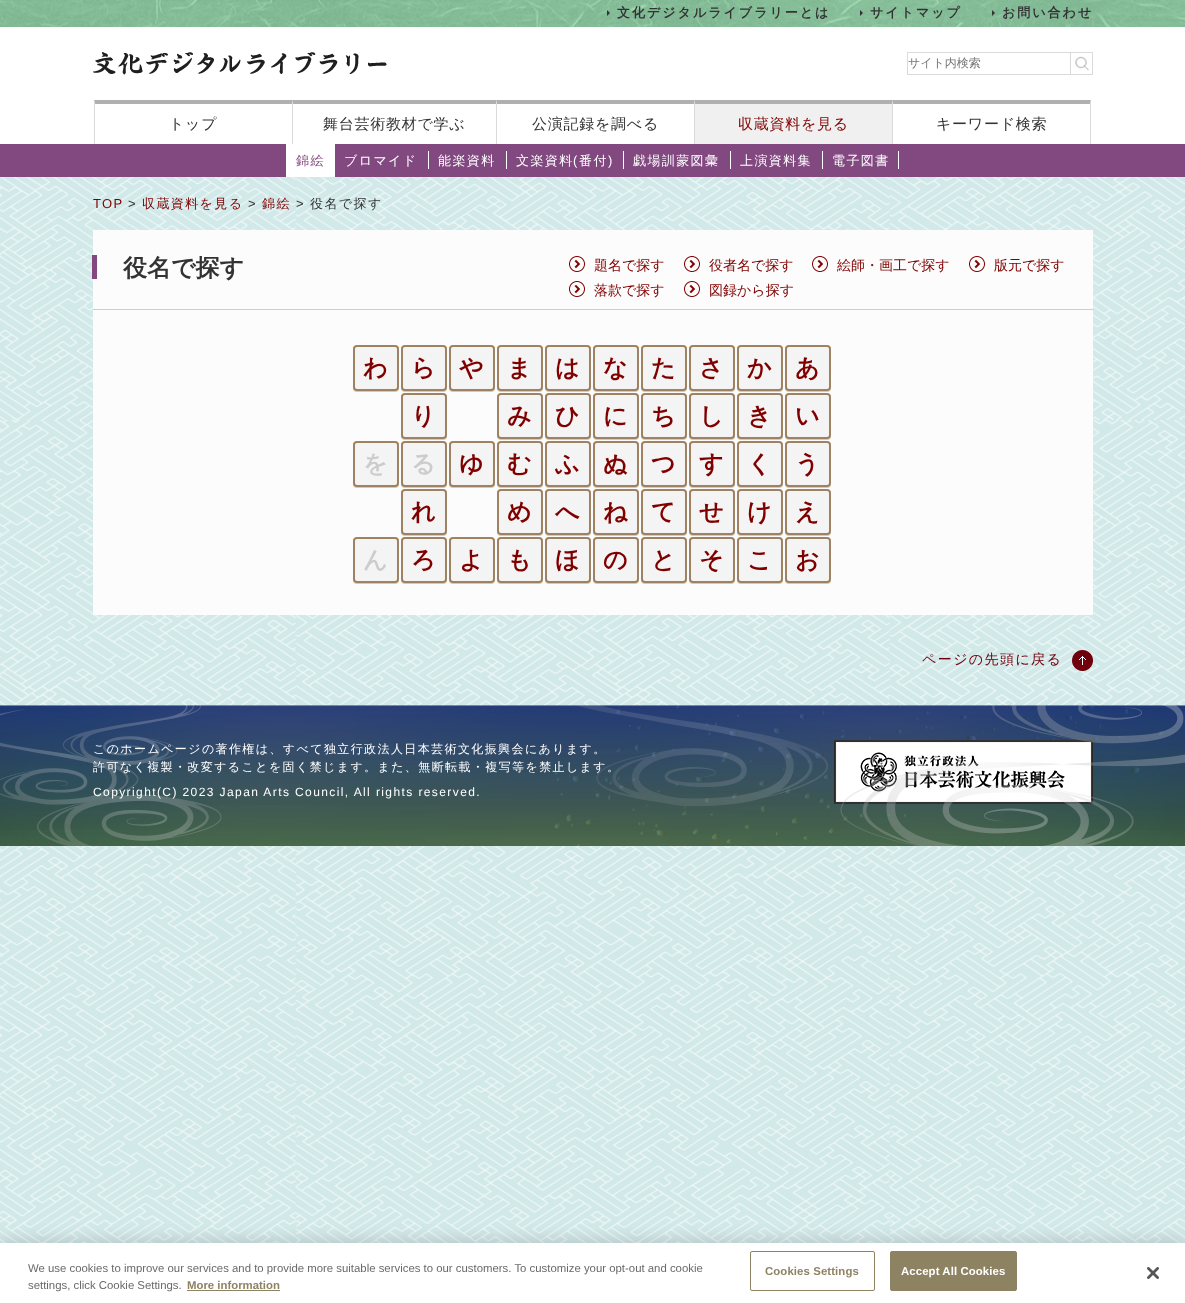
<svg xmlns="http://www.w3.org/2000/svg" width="1185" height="1303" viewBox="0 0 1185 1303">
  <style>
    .t1 { font: bold 13px WenQuanYi Zen Hei; letter-spacing: 2px; fill: #333; }
    .t2 { font: 500 12px WenQuanYi Zen Hei; fill: #757575; }
    .t3 { font: 500 15px WenQuanYi Zen Hei; letter-spacing: 0.75px; fill: #333; }
    .t4 { font: 500 15px WenQuanYi Zen Hei; letter-spacing: 0.75px; fill: #800000; }
    .t5 { font: 500 13px WenQuanYi Zen Hei; letter-spacing: 1.4px; fill: #824880; }
    .t6 { font: 500 13px WenQuanYi Zen Hei; letter-spacing: 1.4px; fill: #fff; }
    .t7 { font: 13px Liberation Sans; letter-spacing: 1.4px; fill: #fff; }
    .t8 { font: 13px Liberation Sans; letter-spacing: 1.4px; fill: #800000; }
    .t9 { font: 13px Liberation Sans; letter-spacing: 1.4px; fill: #333; }
    .t10 { font: 500 13px WenQuanYi Zen Hei; letter-spacing: 1.4px; fill: #800000; }
    .t11 { font: 500 13px WenQuanYi Zen Hei; letter-spacing: 1.4px; fill: #333; }
    .t12 { font: bold 24px WenQuanYi Zen Hei; fill: #333; }
    .t13 { font: 500 14px WenQuanYi Zen Hei; fill: #800000; }
    .t14 { font: bold 24px WenQuanYi Zen Hei; fill: #800000; }
    .t15 { font: bold 24px WenQuanYi Zen Hei; fill: #ccc; }
    .t16 { font: 500 14px WenQuanYi Zen Hei; letter-spacing: 1.4px; fill: #6f000c; }
    .t17 { font: 500 12px WenQuanYi Zen Hei; letter-spacing: 1.4px; fill: #fff; }
    .t18 { font: 12px Liberation Sans; letter-spacing: 1.4px; fill: #fff; }
    .t19 { font: 11.38px Liberation Sans; fill: #696969; }
    .t20 { font: bold 11.38px Liberation Sans; fill: #8d8363; }
    .t21 { font: bold 11.38px Liberation Sans; letter-spacing: 0.1px; fill: #8d8363; }
    .t22 { font: bold 11.38px Liberation Sans; letter-spacing: 0.1px; fill: #fff; }
  </style>
  <rect width="100%" height="100%" fill="#fff"/>
  <image x="0" y="177" width="1185" height="1066" href="images/1.png"/>
  <image x="0" y="0" width="1185" height="27" href="images/2.png"/>
  <path d="M607 16V10L610 13Z" fill="#333"/>
  <text x="617" y="17" class="t1">文化デジタルライブラリーとは</text>
  <path d="M860 16V10L863 13Z" fill="#333"/>
  <text x="870" y="17" class="t1">サイトマップ</text>
  <path d="M992 16V10L995 13Z" fill="#333"/>
  <text x="1002" y="17" class="t1">お問い合わせ</text>
  <image x="93" y="52" width="294" height="23" href="images/3.png"/>
  <rect x="907.5" y="52.5" width="185" height="22" fill="none" stroke="#dadada"/>
  <text x="908" y="67" class="t2">サイト内検索</text>
  <image x="1075" y="56" width="14" height="15" href="images/4.png"/>
  <rect x="1070" y="53" width="1" height="21" fill="#dadada"/>
  <path d="M94 100H292V104H95Z" fill="#b0b0b0"/>
  <path d="M94 144V100L95 104V144Z" fill="#dadada"/>
  <text x="169" y="129" class="t3">トップ</text>
  <path d="M292 100H496V104H293Z" fill="#b0b0b0"/>
  <path d="M292 144V100L293 104V144Z" fill="#dadada"/>
  <text x="323" y="129" class="t3">舞台芸術教材で学ぶ</text>
  <path d="M496 100H694V104H497Z" fill="#b0b0b0"/>
  <path d="M496 144V100L497 104V144Z" fill="#dadada"/>
  <text x="532" y="129" class="t3">公演記録を調べる</text>
  <path d="M694 100H892V104H695Z" fill="#b0b0b0"/>
  <path d="M694 144V100L695 104V144Z" fill="#dadada"/>
  <rect x="695" y="104" width="197" height="40" fill="#f0f0f0"/>
  <text x="738" y="129" class="t4">収蔵資料を見る</text>
  <path d="M892 100H1091L1090 104H893Z" fill="#b0b0b0"/>
  <path d="M1091 100V144H1090V104Z" fill="#dadada"/>
  <path d="M892 144V100L893 104V144Z" fill="#dadada"/>
  <text x="936" y="129" class="t3">キーワード検索</text>
  <rect x="0" y="144" width="1185" height="33" fill="#824880"/>
  <rect x="286" y="144" width="49" height="33" fill="#fff"/>
  <text x="296" y="165" class="t5">錦絵</text>
  <text x="344" y="165" class="t6">ブロマイド</text>
  <rect x="428" y="151" width="1" height="18" fill="#fff"/>
  <text x="438" y="165" class="t6">能楽資料</text>
  <rect x="506" y="151" width="1" height="18" fill="#fff"/>
  <text x="516" y="165" class="t6">文楽資料</text>
  <text x="573" y="165" class="t7">(</text>
  <text x="579" y="165" class="t6">番付</text>
  <text x="608" y="165" class="t7">)</text>
  <rect x="623" y="151" width="1" height="18" fill="#fff"/>
  <text x="633" y="165" class="t6">戯場訓蒙図彙</text>
  <rect x="730" y="151" width="1" height="18" fill="#fff"/>
  <text x="740" y="165" class="t6">上演資料集</text>
  <rect x="822" y="151" width="1" height="18" fill="#fff"/>
  <text x="832" y="165" class="t6">電子図書</text>
  <rect x="898" y="151" width="1" height="18" fill="#fff"/>
  <text x="93" y="208" class="t8">TOP</text>
  <text x="128" y="208" class="t9">&gt;</text>
  <text x="142" y="208" class="t10">収蔵資料を見る</text>
  <text x="248" y="208" class="t9">&gt;</text>
  <text x="262" y="208" class="t10">錦絵</text>
  <text x="296" y="208" class="t9">&gt;</text>
  <text x="310" y="208" class="t11">役名で探す</text>
  <rect x="93" y="230" width="1000" height="385" fill="#fcfcfc"/>
  <rect x="93" y="309" width="1000" height="1" fill="#cdcdcd"/>
  <rect x="92" y="255" width="5" height="24" fill="#824880"/>
  <text x="123" y="276" class="t12">役名で探す</text>
  <image x="569" y="256" width="16" height="16" href="images/5.png"/>
  <text x="594" y="270" class="t13">題名で探す</text>
  <image x="684" y="256" width="16" height="16" href="images/5.png"/>
  <text x="709" y="270" class="t13">役者名で探す</text>
  <image x="812" y="256" width="16" height="16" href="images/5.png"/>
  <text x="837" y="270" class="t13">絵師・画工で探す</text>
  <image x="969" y="256" width="16" height="16" href="images/5.png"/>
  <text x="994" y="270" class="t13">版元で探す</text>
  <image x="569" y="281" width="16" height="16" href="images/5.png"/>
  <text x="594" y="295" class="t13">落款で探す</text>
  <image x="684" y="281" width="16" height="16" href="images/5.png"/>
  <text x="709" y="295" class="t13">図録から探す</text>
  <rect x="785" y="346" width="46" height="46" rx="4" fill="#d2c9bc" filter="blur(0.5px)"/>
  <rect x="786" y="346" width="44" height="44" rx="3" fill="#f4f4f4" stroke="#9f8261" stroke-width="2"/>
  <rect x="785" y="394" width="46" height="46" rx="4" fill="#d2c9bc" filter="blur(0.5px)"/>
  <rect x="786" y="394" width="44" height="44" rx="3" fill="#f4f4f4" stroke="#9f8261" stroke-width="2"/>
  <rect x="737" y="346" width="46" height="46" rx="4" fill="#d2c9bc" filter="blur(0.5px)"/>
  <rect x="738" y="346" width="44" height="44" rx="3" fill="#f4f4f4" stroke="#9f8261" stroke-width="2"/>
  <rect x="785" y="442" width="46" height="46" rx="4" fill="#d2c9bc" filter="blur(0.5px)"/>
  <rect x="786" y="442" width="44" height="44" rx="3" fill="#f4f4f4" stroke="#9f8261" stroke-width="2"/>
  <rect x="737" y="394" width="46" height="46" rx="4" fill="#d2c9bc" filter="blur(0.5px)"/>
  <rect x="738" y="394" width="44" height="44" rx="3" fill="#f4f4f4" stroke="#9f8261" stroke-width="2"/>
  <rect x="689" y="346" width="46" height="46" rx="4" fill="#d2c9bc" filter="blur(0.5px)"/>
  <rect x="690" y="346" width="44" height="44" rx="3" fill="#f4f4f4" stroke="#9f8261" stroke-width="2"/>
  <rect x="785" y="490" width="46" height="46" rx="4" fill="#d2c9bc" filter="blur(0.5px)"/>
  <rect x="786" y="490" width="44" height="44" rx="3" fill="#f4f4f4" stroke="#9f8261" stroke-width="2"/>
  <rect x="737" y="442" width="46" height="46" rx="4" fill="#d2c9bc" filter="blur(0.5px)"/>
  <rect x="738" y="442" width="44" height="44" rx="3" fill="#f4f4f4" stroke="#9f8261" stroke-width="2"/>
  <rect x="689" y="394" width="46" height="46" rx="4" fill="#d2c9bc" filter="blur(0.5px)"/>
  <rect x="690" y="394" width="44" height="44" rx="3" fill="#f4f4f4" stroke="#9f8261" stroke-width="2"/>
  <rect x="641" y="346" width="46" height="46" rx="4" fill="#d2c9bc" filter="blur(0.5px)"/>
  <rect x="642" y="346" width="44" height="44" rx="3" fill="#f4f4f4" stroke="#9f8261" stroke-width="2"/>
  <rect x="785" y="538" width="46" height="46" rx="4" fill="#d2c9bc" filter="blur(0.5px)"/>
  <rect x="786" y="538" width="44" height="44" rx="3" fill="#f4f4f4" stroke="#9f8261" stroke-width="2"/>
  <rect x="737" y="490" width="46" height="46" rx="4" fill="#d2c9bc" filter="blur(0.5px)"/>
  <rect x="738" y="490" width="44" height="44" rx="3" fill="#f4f4f4" stroke="#9f8261" stroke-width="2"/>
  <rect x="689" y="442" width="46" height="46" rx="4" fill="#d2c9bc" filter="blur(0.5px)"/>
  <rect x="690" y="442" width="44" height="44" rx="3" fill="#f4f4f4" stroke="#9f8261" stroke-width="2"/>
  <rect x="641" y="394" width="46" height="46" rx="4" fill="#d2c9bc" filter="blur(0.5px)"/>
  <rect x="642" y="394" width="44" height="44" rx="3" fill="#f4f4f4" stroke="#9f8261" stroke-width="2"/>
  <rect x="593" y="346" width="46" height="46" rx="4" fill="#d2c9bc" filter="blur(0.5px)"/>
  <rect x="594" y="346" width="44" height="44" rx="3" fill="#f4f4f4" stroke="#9f8261" stroke-width="2"/>
  <rect x="737" y="538" width="46" height="46" rx="4" fill="#d2c9bc" filter="blur(0.5px)"/>
  <rect x="738" y="538" width="44" height="44" rx="3" fill="#f4f4f4" stroke="#9f8261" stroke-width="2"/>
  <rect x="689" y="490" width="46" height="46" rx="4" fill="#d2c9bc" filter="blur(0.5px)"/>
  <rect x="690" y="490" width="44" height="44" rx="3" fill="#f4f4f4" stroke="#9f8261" stroke-width="2"/>
  <rect x="641" y="442" width="46" height="46" rx="4" fill="#d2c9bc" filter="blur(0.5px)"/>
  <rect x="642" y="442" width="44" height="44" rx="3" fill="#f4f4f4" stroke="#9f8261" stroke-width="2"/>
  <rect x="593" y="394" width="46" height="46" rx="4" fill="#d2c9bc" filter="blur(0.5px)"/>
  <rect x="594" y="394" width="44" height="44" rx="3" fill="#f4f4f4" stroke="#9f8261" stroke-width="2"/>
  <rect x="545" y="346" width="46" height="46" rx="4" fill="#d2c9bc" filter="blur(0.5px)"/>
  <rect x="546" y="346" width="44" height="44" rx="3" fill="#f4f4f4" stroke="#9f8261" stroke-width="2"/>
  <rect x="689" y="538" width="46" height="46" rx="4" fill="#d2c9bc" filter="blur(0.5px)"/>
  <rect x="690" y="538" width="44" height="44" rx="3" fill="#f4f4f4" stroke="#9f8261" stroke-width="2"/>
  <rect x="641" y="490" width="46" height="46" rx="4" fill="#d2c9bc" filter="blur(0.5px)"/>
  <rect x="642" y="490" width="44" height="44" rx="3" fill="#f4f4f4" stroke="#9f8261" stroke-width="2"/>
  <rect x="593" y="442" width="46" height="46" rx="4" fill="#d2c9bc" filter="blur(0.5px)"/>
  <rect x="594" y="442" width="44" height="44" rx="3" fill="#f4f4f4" stroke="#9f8261" stroke-width="2"/>
  <rect x="545" y="394" width="46" height="46" rx="4" fill="#d2c9bc" filter="blur(0.5px)"/>
  <rect x="546" y="394" width="44" height="44" rx="3" fill="#f4f4f4" stroke="#9f8261" stroke-width="2"/>
  <rect x="497" y="346" width="46" height="46" rx="4" fill="#d2c9bc" filter="blur(0.5px)"/>
  <rect x="498" y="346" width="44" height="44" rx="3" fill="#f4f4f4" stroke="#9f8261" stroke-width="2"/>
  <rect x="641" y="538" width="46" height="46" rx="4" fill="#d2c9bc" filter="blur(0.5px)"/>
  <rect x="642" y="538" width="44" height="44" rx="3" fill="#f4f4f4" stroke="#9f8261" stroke-width="2"/>
  <rect x="593" y="490" width="46" height="46" rx="4" fill="#d2c9bc" filter="blur(0.5px)"/>
  <rect x="594" y="490" width="44" height="44" rx="3" fill="#f4f4f4" stroke="#9f8261" stroke-width="2"/>
  <rect x="545" y="442" width="46" height="46" rx="4" fill="#d2c9bc" filter="blur(0.5px)"/>
  <rect x="546" y="442" width="44" height="44" rx="3" fill="#f4f4f4" stroke="#9f8261" stroke-width="2"/>
  <rect x="497" y="394" width="46" height="46" rx="4" fill="#d2c9bc" filter="blur(0.5px)"/>
  <rect x="498" y="394" width="44" height="44" rx="3" fill="#f4f4f4" stroke="#9f8261" stroke-width="2"/>
  <rect x="449" y="346" width="46" height="46" rx="4" fill="#d2c9bc" filter="blur(0.5px)"/>
  <rect x="450" y="346" width="44" height="44" rx="3" fill="#f4f4f4" stroke="#9f8261" stroke-width="2"/>
  <rect x="401" y="346" width="46" height="46" rx="4" fill="#d2c9bc" filter="blur(0.5px)"/>
  <rect x="402" y="346" width="44" height="44" rx="3" fill="#f4f4f4" stroke="#9f8261" stroke-width="2"/>
  <rect x="593" y="538" width="46" height="46" rx="4" fill="#d2c9bc" filter="blur(0.5px)"/>
  <rect x="594" y="538" width="44" height="44" rx="3" fill="#f4f4f4" stroke="#9f8261" stroke-width="2"/>
  <rect x="545" y="490" width="46" height="46" rx="4" fill="#d2c9bc" filter="blur(0.5px)"/>
  <rect x="546" y="490" width="44" height="44" rx="3" fill="#f4f4f4" stroke="#9f8261" stroke-width="2"/>
  <rect x="497" y="442" width="46" height="46" rx="4" fill="#d2c9bc" filter="blur(0.5px)"/>
  <rect x="498" y="442" width="44" height="44" rx="3" fill="#f4f4f4" stroke="#9f8261" stroke-width="2"/>
  <rect x="545" y="538" width="46" height="46" rx="4" fill="#d2c9bc" filter="blur(0.5px)"/>
  <rect x="546" y="538" width="44" height="44" rx="3" fill="#f4f4f4" stroke="#9f8261" stroke-width="2"/>
  <rect x="497" y="490" width="46" height="46" rx="4" fill="#d2c9bc" filter="blur(0.5px)"/>
  <rect x="498" y="490" width="44" height="44" rx="3" fill="#f4f4f4" stroke="#9f8261" stroke-width="2"/>
  <rect x="449" y="442" width="46" height="46" rx="4" fill="#d2c9bc" filter="blur(0.5px)"/>
  <rect x="450" y="442" width="44" height="44" rx="3" fill="#f4f4f4" stroke="#9f8261" stroke-width="2"/>
  <rect x="401" y="394" width="46" height="46" rx="4" fill="#d2c9bc" filter="blur(0.5px)"/>
  <rect x="402" y="394" width="44" height="44" rx="3" fill="#f4f4f4" stroke="#9f8261" stroke-width="2"/>
  <rect x="353" y="346" width="46" height="46" rx="4" fill="#d2c9bc" filter="blur(0.5px)"/>
  <rect x="354" y="346" width="44" height="44" rx="3" fill="#f4f4f4" stroke="#9f8261" stroke-width="2"/>
  <text x="363" y="376" class="t14">わ</text>
  <rect x="401" y="442" width="46" height="46" rx="4" fill="#d2c9bc" filter="blur(0.5px)"/>
  <rect x="402" y="442" width="44" height="44" rx="3" fill="#f4f4f4" stroke="#9f8261" stroke-width="2"/>
  <rect x="497" y="538" width="46" height="46" rx="4" fill="#d2c9bc" filter="blur(0.5px)"/>
  <rect x="498" y="538" width="44" height="44" rx="3" fill="#f4f4f4" stroke="#9f8261" stroke-width="2"/>
  <rect x="449" y="538" width="46" height="46" rx="4" fill="#d2c9bc" filter="blur(0.5px)"/>
  <rect x="450" y="538" width="44" height="44" rx="3" fill="#f4f4f4" stroke="#9f8261" stroke-width="2"/>
  <rect x="401" y="490" width="46" height="46" rx="4" fill="#d2c9bc" filter="blur(0.5px)"/>
  <rect x="402" y="490" width="44" height="44" rx="3" fill="#f4f4f4" stroke="#9f8261" stroke-width="2"/>
  <rect x="353" y="442" width="46" height="46" rx="4" fill="#d2c9bc" filter="blur(0.5px)"/>
  <rect x="354" y="442" width="44" height="44" rx="3" fill="#f4f4f4" stroke="#9f8261" stroke-width="2"/>
  <text x="363" y="472" class="t15">を</text>
  <rect x="401" y="538" width="46" height="46" rx="4" fill="#d2c9bc" filter="blur(0.5px)"/>
  <rect x="402" y="538" width="44" height="44" rx="3" fill="#f4f4f4" stroke="#9f8261" stroke-width="2"/>
  <rect x="353" y="538" width="46" height="46" rx="4" fill="#d2c9bc" filter="blur(0.5px)"/>
  <rect x="354" y="538" width="44" height="44" rx="3" fill="#f4f4f4" stroke="#9f8261" stroke-width="2"/>
  <text x="363" y="568" class="t15">ん</text>
  <text x="411" y="376" class="t14">ら</text>
  <text x="411" y="424" class="t14">り</text>
  <text x="411" y="472" class="t15">る</text>
  <text x="411" y="520" class="t14">れ</text>
  <text x="411" y="568" class="t14">ろ</text>
  <text x="459" y="376" class="t14">や</text>
  <text x="459" y="472" class="t14">ゆ</text>
  <text x="459" y="568" class="t14">よ</text>
  <text x="507" y="376" class="t14">ま</text>
  <text x="507" y="424" class="t14">み</text>
  <text x="507" y="472" class="t14">む</text>
  <text x="507" y="520" class="t14">め</text>
  <text x="507" y="568" class="t14">も</text>
  <text x="555" y="376" class="t14">は</text>
  <text x="555" y="424" class="t14">ひ</text>
  <text x="555" y="472" class="t14">ふ</text>
  <text x="555" y="520" class="t14">へ</text>
  <text x="555" y="568" class="t14">ほ</text>
  <text x="603" y="376" class="t14">な</text>
  <text x="603" y="424" class="t14">に</text>
  <text x="603" y="472" class="t14">ぬ</text>
  <text x="603" y="520" class="t14">ね</text>
  <text x="603" y="568" class="t14">の</text>
  <text x="651" y="376" class="t14">た</text>
  <text x="651" y="424" class="t14">ち</text>
  <text x="651" y="472" class="t14">つ</text>
  <text x="651" y="520" class="t14">て</text>
  <text x="651" y="568" class="t14">と</text>
  <text x="699" y="376" class="t14">さ</text>
  <text x="699" y="424" class="t14">し</text>
  <text x="699" y="472" class="t14">す</text>
  <text x="699" y="520" class="t14">せ</text>
  <text x="699" y="568" class="t14">そ</text>
  <text x="747" y="376" class="t14">か</text>
  <text x="747" y="424" class="t14">き</text>
  <text x="747" y="472" class="t14">く</text>
  <text x="747" y="520" class="t14">け</text>
  <text x="747" y="568" class="t14">こ</text>
  <text x="795" y="376" class="t14">あ</text>
  <text x="795" y="424" class="t14">い</text>
  <text x="795" y="472" class="t14">う</text>
  <text x="795" y="520" class="t14">え</text>
  <text x="795" y="568" class="t14">お</text>
  <image x="1072" y="650" width="21" height="21" href="images/6.png"/>
  <text x="922" y="664" class="t16">ページの先頭に戻る</text>
  <image x="0" y="705" width="1185" height="141" href="images/7.png"/>
  <image x="0" y="705" width="222" height="141" href="images/8.png"/>
  <text x="93" y="753" class="t17">このホームページの著作権は、すべて独立行政法人日本芸術文化振興会にあります。</text>
  <text x="93" y="771" class="t17">許可なく複製・改変することを固く禁じます。また、無断転載・複写等を禁止します。</text>
  <image x="834" y="740" width="259" height="64" href="images/10.png"/>
  <image x="576" y="705" width="609" height="141" href="images/9.png"/>
  <text x="93" y="796" class="t18">Copyright(C) 2023 Japan Arts Council, All rights reserved.</text>
  <rect x="0" y="1243" width="1185" height="60" fill="#00000033" filter="blur(9px)"/>
  <rect x="0" y="1243" width="1185" height="60" fill="#fff"/>
  <text x="28" y="1272" class="t19">We use cookies to improve our services and to provide more suitable services to our customers. To customize your opt-out and cookie</text>
  <text x="28" y="1289" class="t19">settings, click Cookie Settings.</text>
  <text x="187" y="1289" class="t20">More information</text>
  <rect x="187" y="1290" width="93" height="1" fill="#8d8363"/>
  <rect x="750.5" y="1251.5" width="124" height="39" rx="1.5" fill="none" stroke="#8d8363"/>
  <text x="765" y="1275" class="t21">Cookies Settings</text>
  <rect x="890.5" y="1251.5" width="126" height="39" rx="1.5" fill="#8d8363" stroke="#8d8363"/>
  <text x="901" y="1275" class="t22">Accept All Cookies</text>
  <image x="1147" y="1267" width="12" height="12" href="images/11.png"/>
</svg>
